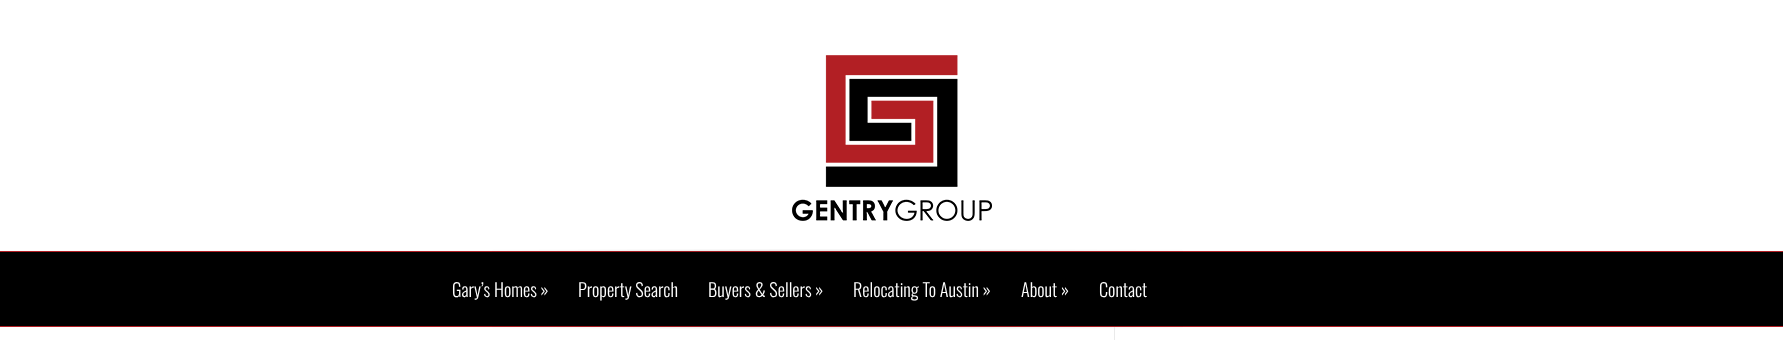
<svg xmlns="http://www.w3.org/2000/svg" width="1783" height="340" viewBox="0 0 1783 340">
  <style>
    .t1 { font: 300 18.25px Oswald; fill: #fff; }
  </style>
  <rect width="100%" height="100%" fill="#fff"/>
  <image x="792" y="55" width="200" height="166" href="images/1.png"/>
  <rect x="0" y="252" width="1783" height="74" fill="#000"/>
  <rect x="0" y="251" width="1783" height="1" fill="#b21f24"/>
  <rect x="0" y="326" width="1783" height="1" fill="#b21f24"/>
  <image x="492" y="249" width="691" height="3" href="images/2.png"/>
  <text x="452" y="297" class="t1">Gary’s Homes »</text>
  <text x="578" y="297" class="t1">Property Search</text>
  <text x="708" y="297" class="t1">Buyers &amp; Sellers »</text>
  <text x="853" y="297" class="t1">Relocating To Austin »</text>
  <text x="1021" y="297" class="t1">About »</text>
  <text x="1099" y="297" class="t1">Contact</text>
  <image x="492" y="326" width="691" height="3" href="images/3.png"/>
  <rect x="1114" y="327" width="1" height="13" fill="#eaeaea"/>
</svg>
